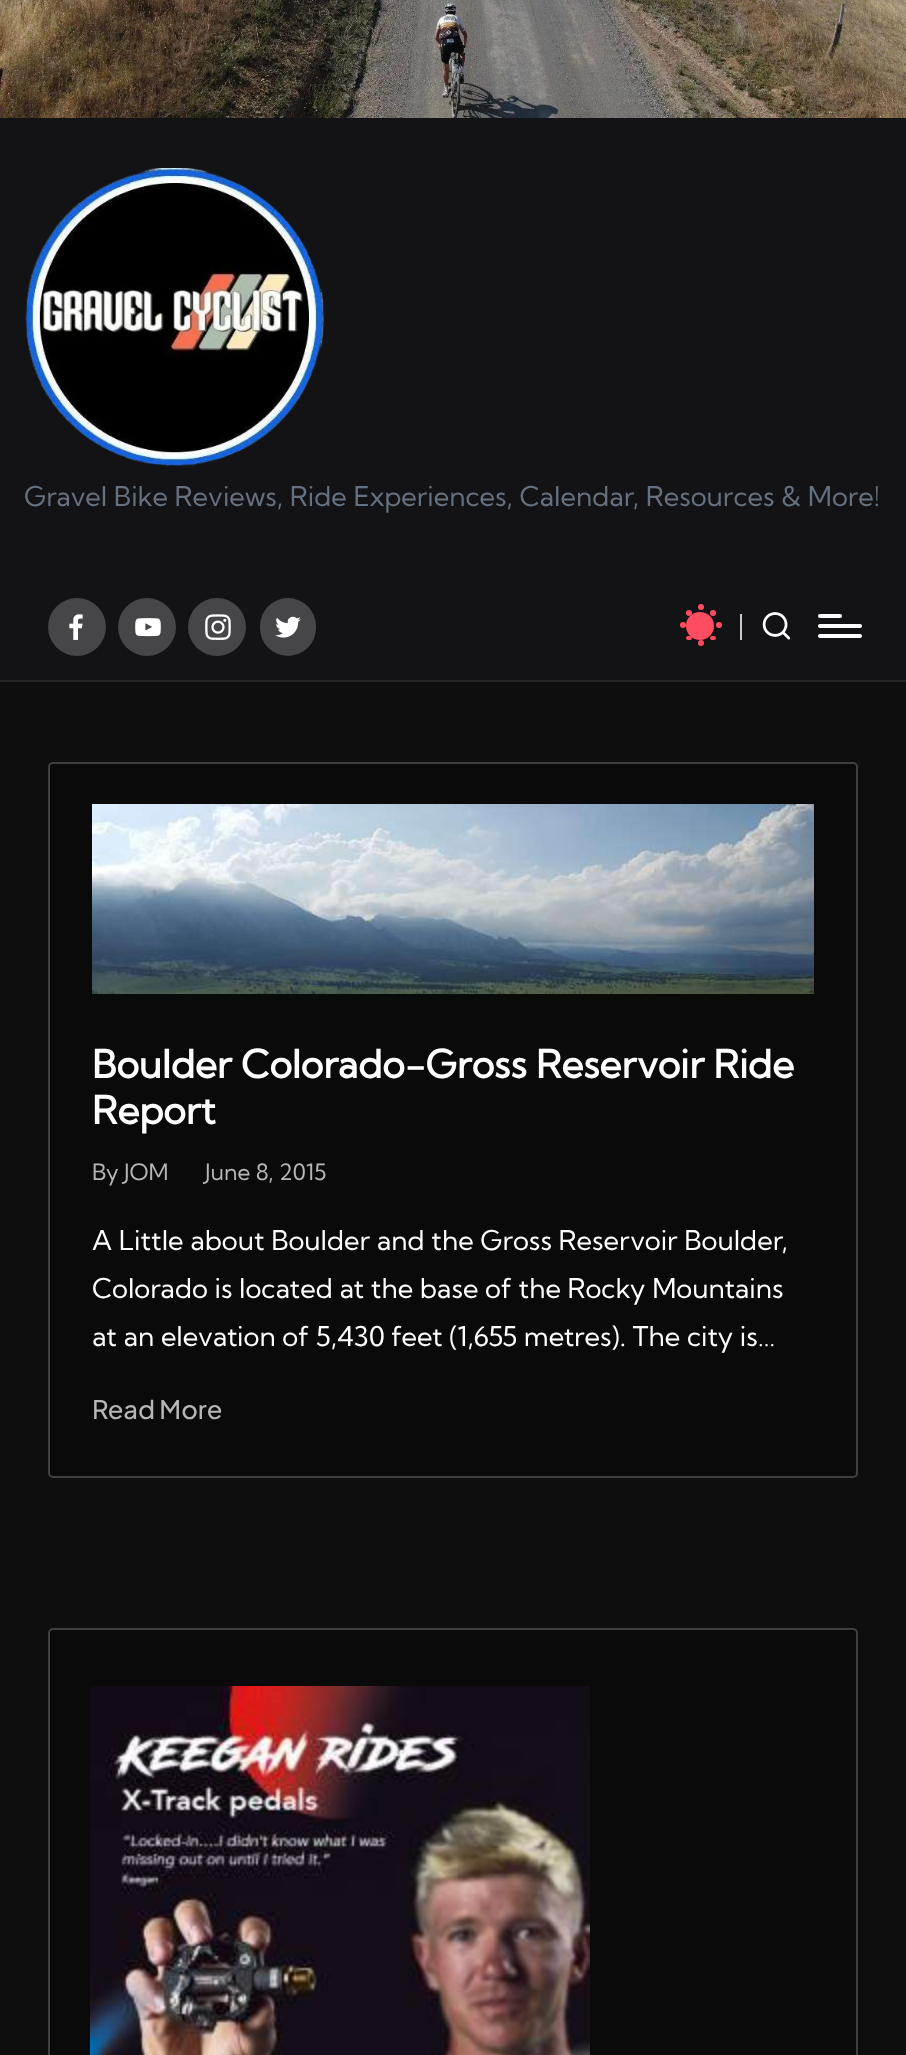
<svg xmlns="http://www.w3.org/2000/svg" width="906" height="2055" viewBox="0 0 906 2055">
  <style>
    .t1 { font: 27.2px Kumbh Sans; fill: #66717f; }
    .t2 { font: bold 38.4px Kumbh Sans; fill: #fff; }
    .t3 { font: 22.5px Kumbh Sans; fill: #b6b6b6; }
    .t4 { font: 27.2px Kumbh Sans; fill: #fff; }
    .t5 { font: 500 25.5px Plus Jakarta Sans; fill: #b6b6b6; }
  </style>
  <rect width="100%" height="100%" fill="#0e0e0e"/>
  <image x="0" y="0" width="906" height="118" href="images/1.png"/>
  <rect x="0" y="118" width="906" height="562" fill="#131315"/>
  <rect x="0" y="680" width="906" height="2" fill="#262628"/>
  <image x="25" y="168" width="299" height="299" href="images/2.png"/>
  <text x="24" y="506" class="t1">Gravel Bike Reviews, Ride Experiences, Calendar, Resources &amp; More!</text>
  <circle cx="77" cy="627" r="29" fill="#464648"/>
  <image x="69" y="614" width="14" height="26" href="images/3.png"/>
  <circle cx="147" cy="627" r="29" fill="#464648"/>
  <image x="135" y="618" width="26" height="19" href="images/4.png"/>
  <circle cx="217" cy="627" r="29" fill="#464648"/>
  <image x="205" y="614" width="26" height="26" href="images/5.png"/>
  <rect x="260" y="598" width="56" height="58" rx="28" fill="#464648"/>
  <image x="275" y="616" width="26" height="22" href="images/6.png"/>
  <circle cx="713" cy="613" r="3" fill="#ff4c60"/>
  <rect x="686" y="636" width="6" height="4" rx="2" fill="#ff4c60"/>
  <rect x="710" y="636" width="6" height="4" rx="2" fill="#ff4c60"/>
  <circle cx="689" cy="613" r="3" fill="#ff4c60"/>
  <circle cx="701" cy="643" r="3" fill="#ff4c60"/>
  <circle cx="701" cy="607" r="3" fill="#ff4c60"/>
  <circle cx="719" cy="625" r="3" fill="#ff4c60"/>
  <circle cx="683" cy="625" r="3" fill="#ff4c60"/>
  <circle cx="700" cy="626" r="14" fill="#ff4c60"/>
  <rect x="740" y="614" width="2" height="26" fill="#ccc"/>
  <image x="762" y="612" width="29" height="28" href="images/7.png"/>
  <rect x="818" y="624" width="44" height="4" rx="2" fill="#fff"/>
  <rect x="818" y="614" width="24" height="4" rx="2" fill="#fff"/>
  <rect x="818" y="634" width="44" height="4" rx="2" fill="#fff"/>
  <rect x="49" y="763" width="808" height="714" rx="4" fill="#0a0a0a" stroke="#404040" stroke-width="2"/>
  <image x="92" y="804" width="722" height="190" href="images/8.png"/>
  <text x="92" y="1078" class="t2">Boulder Colorado-Gross Reservoir Ride</text>
  <text x="92" y="1124" class="t2">Report</text>
  <text x="92" y="1180" class="t3">By JOM</text>
  <text x="205" y="1180" class="t3">June 8, 2015</text>
  <text x="92" y="1250" class="t4">A Little about Boulder and the Gross Reservoir Boulder,</text>
  <text x="92" y="1298" class="t4">Colorado is located at the base of the Rocky Mountains</text>
  <text x="92" y="1346" class="t4">at an elevation of 5,430 feet (1,655 metres). The city is…</text>
  <text x="92" y="1419" class="t5">Read More</text>
  <rect x="49" y="1629" width="808" height="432" rx="4" fill="#0a0a0a" stroke="#404040" stroke-width="2"/>
  <image x="90" y="1686" width="500" height="369" href="images/9.png"/>
</svg>
